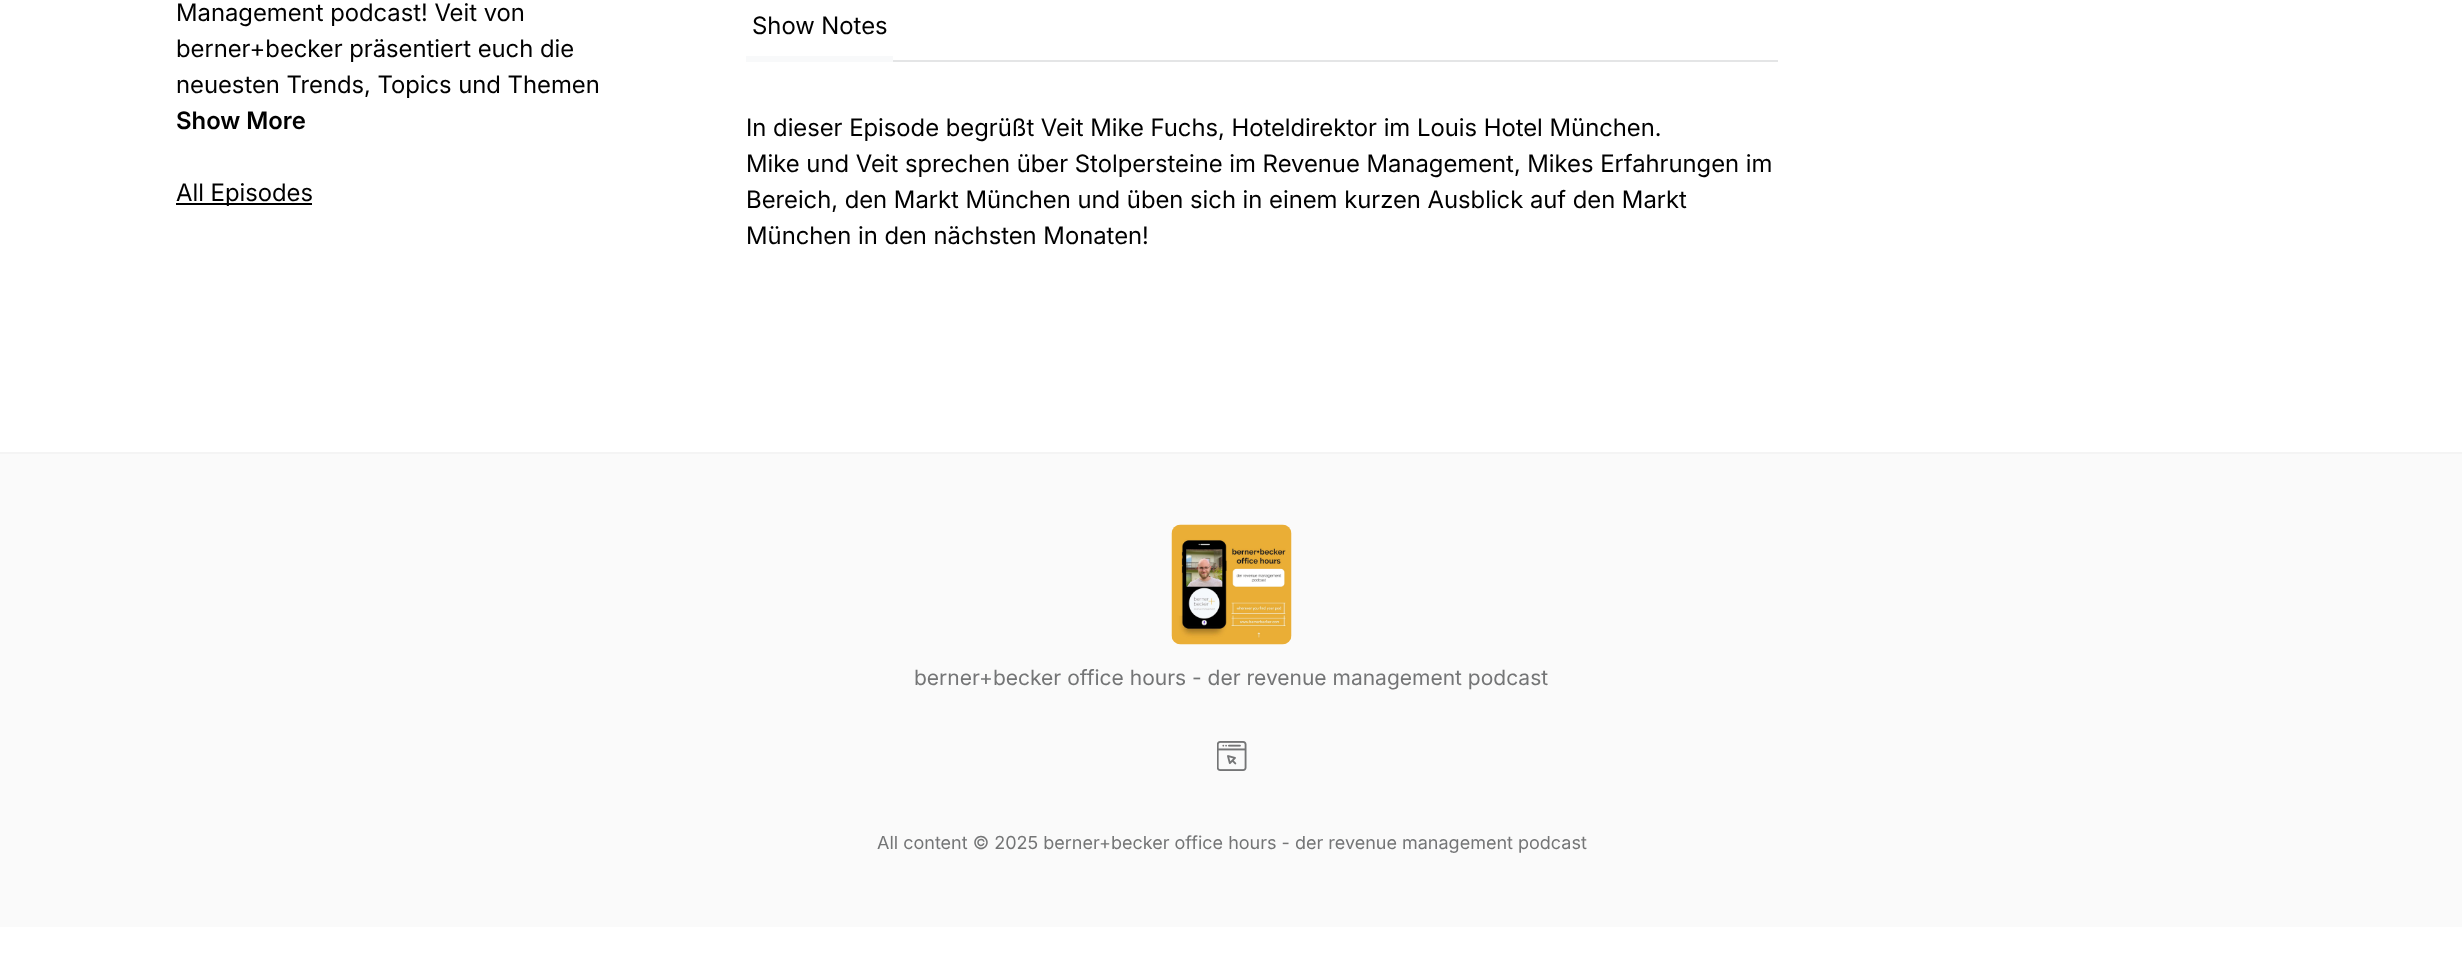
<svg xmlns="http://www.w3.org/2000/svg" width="2462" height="957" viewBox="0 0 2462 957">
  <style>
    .t1 { font: 24px Inter; fill: #000; }
    .t2 { font: 600 24px Inter; fill: #000; }
    .t3 { font: 21px 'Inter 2'; fill: #747576; }
    .t4 { font: 18px 'Inter 2'; fill: #747576; }
  </style>
  <rect width="100%" height="100%" fill="#fff"/>
  <text x="176" y="21" class="t1">Management podcast! Veit von</text>
  <text x="176" y="57" class="t1">berner+becker präsentiert euch die</text>
  <text x="176" y="93" class="t1">neuesten Trends, Topics und Themen</text>
  <text x="176" y="129" class="t2">Show More</text>
  <rect x="176" y="203" width="136" height="2" fill="#000"/>
  <text x="176" y="201" class="t1">All Episodes</text>
  <rect x="893" y="60" width="885" height="2" fill="#e4e5e6"/>
  <rect x="746" y="56" width="147" height="6" fill="#f8f9fa"/>
  <text x="752" y="34" class="t1">Show Notes</text>
  <text x="746" y="136" class="t1">In dieser Episode begrüßt Veit Mike Fuchs, Hoteldirektor im Louis Hotel München.</text>
  <text x="746" y="172" class="t1">Mike und Veit sprechen über Stolpersteine im Revenue Management, Mikes Erfahrungen im</text>
  <text x="746" y="208" class="t1">Bereich, den Markt München und üben sich in einem kurzen Ausblick auf den Markt</text>
  <text x="746" y="244" class="t1">München in den nächsten Monaten!</text>
  <rect x="0" y="454" width="2462" height="473" fill="#fafafa"/>
  <rect x="0" y="452" width="2462" height="2" fill="#f4f4f4"/>
  <image x="1171" y="524" width="121" height="121" href="images/1.png"/>
  <text x="914" y="685" class="t3">berner+becker office hours - der revenue management podcast</text>
  <image x="1217" y="741" width="30" height="30" href="images/2.png"/>
  <text x="877" y="849" class="t4">All content © 2025 berner+becker office hours - der revenue management podcast</text>
</svg>
